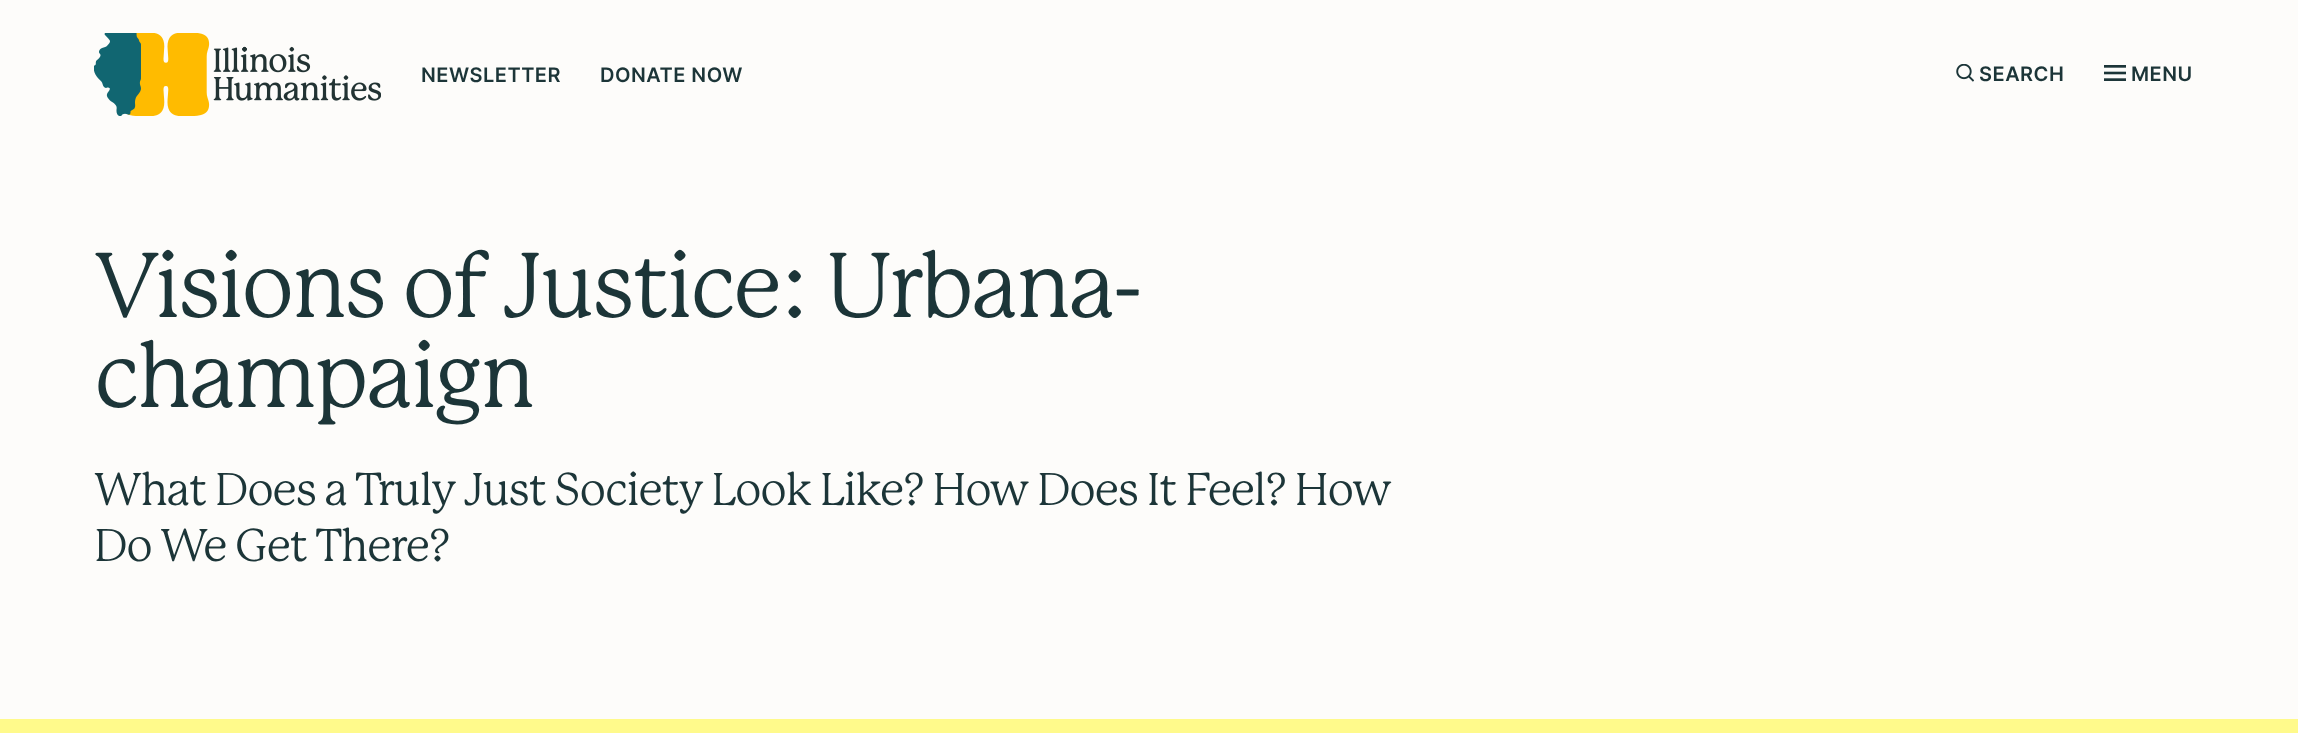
<svg xmlns="http://www.w3.org/2000/svg" width="2298" height="733" viewBox="0 0 2298 733">
  <style>
    .t1 { font: 600 20px Inter; letter-spacing: 0.5px; fill: #1c3538; }
    .t2 { font: 90px 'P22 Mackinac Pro'; letter-spacing: -2.7px; fill: #1c3538; }
    .t3 { font: 45px 'P22 Mackinac Pro'; letter-spacing: -1.35px; fill: #1c3538; }
  </style>
  <rect width="100%" height="100%" fill="#fdfcfa"/>
  <image x="94" y="33" width="287" height="83" href="images/1.png"/>
  <text x="421" y="82" class="t1">NEWSLETTER</text>
  <text x="600" y="82" class="t1">DONATE NOW</text>
  <image x="1956" y="64" width="18" height="18" href="images/2.png"/>
  <text x="1979" y="81" class="t1">SEARCH</text>
  <image x="2104" y="65" width="22" height="16" href="images/3.png"/>
  <text x="2131" y="81" class="t1">MENU</text>
  <text x="94" y="317" class="t2">Visions of Justice: Urbana-</text>
  <text x="94" y="407" class="t2">champaign</text>
  <text x="94" y="505" class="t3">What Does a Truly Just Society Look Like? How Does It Feel? How</text>
  <text x="94" y="561" class="t3">Do We Get There?</text>
  <rect x="0" y="719" width="2298" height="14" fill="#fffa8b"/>
</svg>
